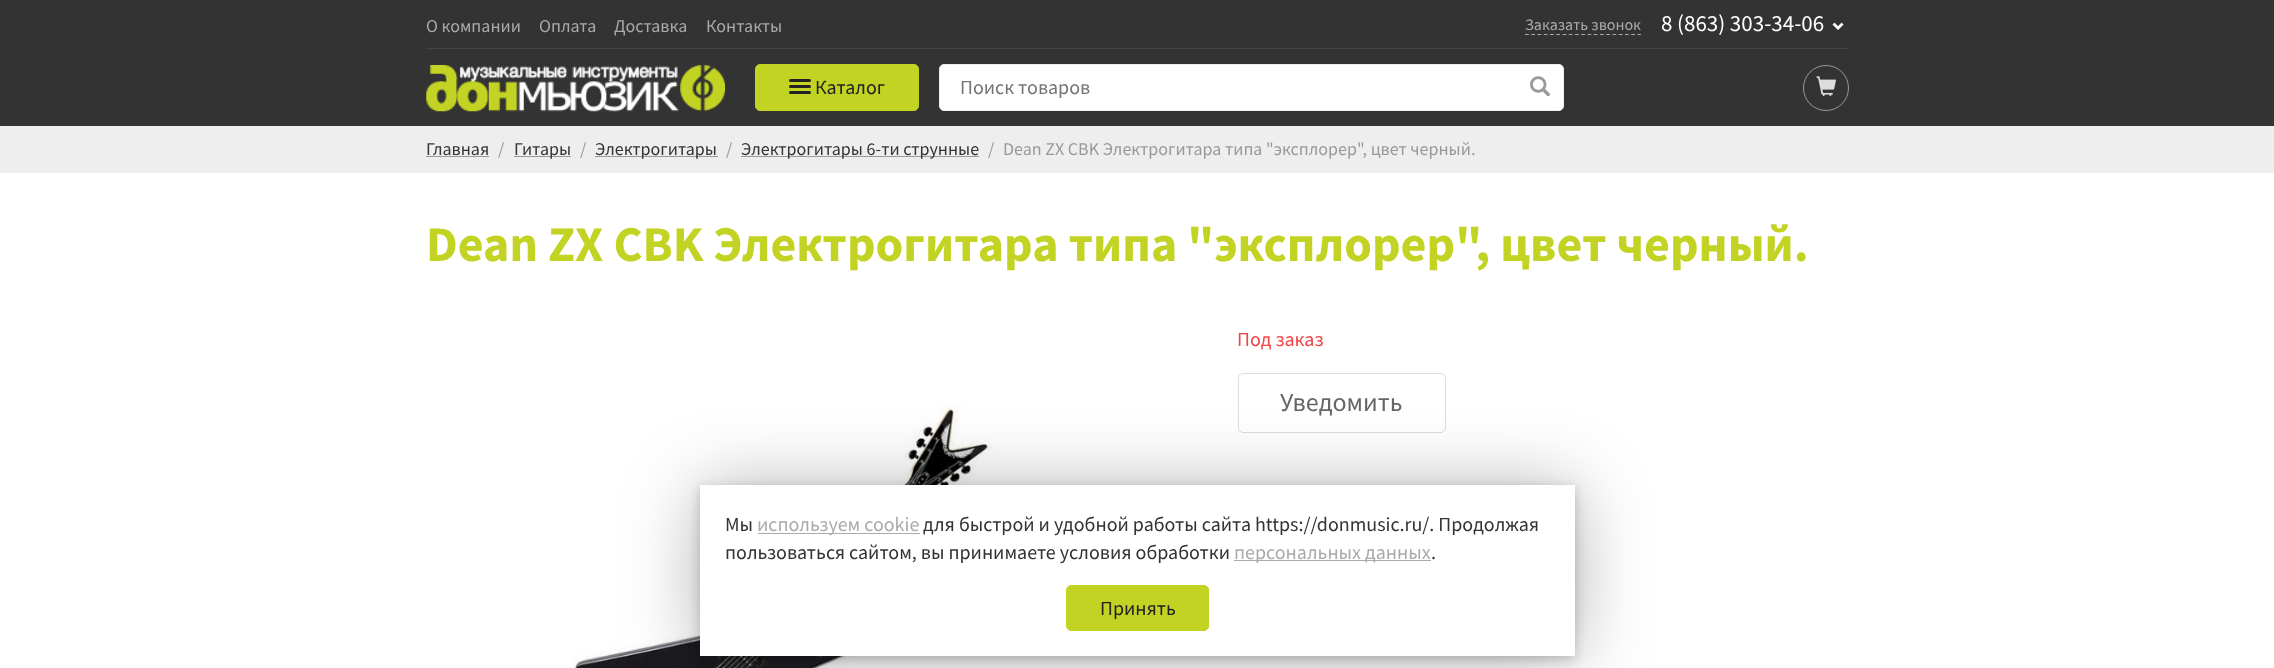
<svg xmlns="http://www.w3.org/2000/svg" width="2274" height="668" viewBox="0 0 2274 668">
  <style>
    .t1 { font: 18px Source Sans Pro; fill: #aaa; }
    .t2 { font: 16px Source Sans Pro; fill: #aaa; }
    .t3 { font: 23px Source Sans Pro; fill: #fff; }
    .t4 { font: 20px Source Sans Pro; fill: #222; }
    .t5 { font: 20px Source Sans Pro; fill: #757575; }
    .t6 { font: 18px Source Sans Pro; fill: #333; }
    .t7 { font: 18px Source Sans Pro; fill: #999; }
    .t8 { font: bold 50px Source Sans Pro; fill: #c2d324; }
    .t9 { font: 20px Source Sans Pro; fill: #f24444; }
    .t10 { font: 26px Source Sans Pro; fill: #666; }
    .t11 { font: 20px Source Sans Pro; fill: #333; }
    .t12 { font: 20px Source Sans Pro; fill: #aaa; }
  </style>
  <rect width="100%" height="100%" fill="#fff"/>
  <rect x="0" y="0" width="2274" height="126" fill="#333"/>
  <text x="426" y="32" class="t1">О компании</text>
  <text x="539" y="32" class="t1">Оплата</text>
  <text x="614" y="32" class="t1">Доставка</text>
  <text x="706" y="32" class="t1">Контакты</text>
  <text x="1525" y="30" class="t2">Заказать звонок</text>
  <path d="M1525 34.5H1641" fill="none" stroke="#aaa" stroke-width="1.2" stroke-dasharray="3.75 2.5"/>
  <text x="1661" y="31" class="t3">8 (863) 303-34-06</text>
  <image x="1832" y="22" width="12" height="8" href="images/1.png"/>
  <rect x="426" y="48" width="1423" height="1" fill="#444"/>
  <image x="426" y="65" width="299" height="47" href="images/2.png"/>
  <rect x="755.5" y="64.5" width="163" height="46" rx="4.5" fill="#c2d324" stroke="#c2d324"/>
  <rect x="789" y="79" width="22" height="3" rx="1.5" fill="#222"/>
  <rect x="789" y="85" width="22" height="3" rx="1.5" fill="#222"/>
  <rect x="789" y="91" width="22" height="3" rx="1.5" fill="#222"/>
  <text x="815" y="94" class="t4">Каталог</text>
  <rect x="939.5" y="64.5" width="624" height="46" rx="4.5" fill="#fff" stroke="#eee"/>
  <text x="960" y="94" class="t5">Поиск товаров</text>
  <image x="1530" y="76" width="20" height="20" href="images/3.png"/>
  <circle cx="1826" cy="88" r="22.5" fill="none" stroke="#999"/>
  <image x="1816" y="76" width="20" height="21" href="images/4.png"/>
  <rect x="0" y="126" width="2274" height="47" fill="#eee"/>
  <text x="426" y="155" class="t6">Главная</text>
  <rect x="426" y="156" width="63" height="1" fill="#999"/>
  <text x="498" y="155" class="t7">/</text>
  <rect x="514" y="156" width="57" height="1" fill="#999"/>
  <text x="514" y="155" class="t6">Гитары</text>
  <text x="580" y="155" class="t7">/</text>
  <rect x="595" y="156" width="123" height="1" fill="#999"/>
  <text x="595" y="155" class="t6">Электрогитары</text>
  <text x="726" y="155" class="t7">/</text>
  <rect x="741" y="156" width="238" height="1" fill="#999"/>
  <text x="741" y="155" class="t6">Электрогитары 6-ти струнные</text>
  <text x="988" y="155" class="t7">/</text>
  <text x="1003" y="155" class="t7">Dean ZX CBK Электрогитара типа "эксплорер", цвет черный.</text>
  <text x="426" y="261" class="t8">Dean ZX CBK Электрогитара типа "эксплорер", цвет черный.</text>
  <text x="1237" y="346" class="t9">Под заказ</text>
  <rect x="1238.5" y="373.5" width="207" height="59" rx="4.5" fill="none" stroke="#ddd"/>
  <text x="1280" y="411" class="t10">Уведомить</text>
  <image x="571" y="405" width="423" height="263" href="images/5.png"/>
  <rect x="700" y="488" width="875" height="171" fill="#00000033" filter="blur(6px)"/>
  <rect x="700" y="488" width="875" height="171" fill="#0000004d" filter="blur(37.5px)"/>
  <rect x="700" y="485" width="875" height="171" fill="#fff"/>
  <text x="725" y="531" class="t11">Мы</text>
  <rect x="758" y="533" width="162" height="1" fill="#aaa"/>
  <text x="757" y="531" class="t12">используем cookie</text>
  <text x="923" y="531" class="t11">для быстрой и удобной работы сайта https://donmusic.ru/. Продолжая</text>
  <text x="725" y="559" class="t11">пользоваться сайтом, вы принимаете условия обработки</text>
  <rect x="1234" y="560" width="197" height="1" fill="#aaa"/>
  <text x="1234" y="559" class="t12">персональных данных</text>
  <text x="1431" y="559" class="t11">.</text>
  <rect x="1066.5" y="585.5" width="142" height="45" rx="4.5" fill="#c2d324" stroke="#c2d324"/>
  <text x="1100" y="615" class="t4">Принять</text>
</svg>
